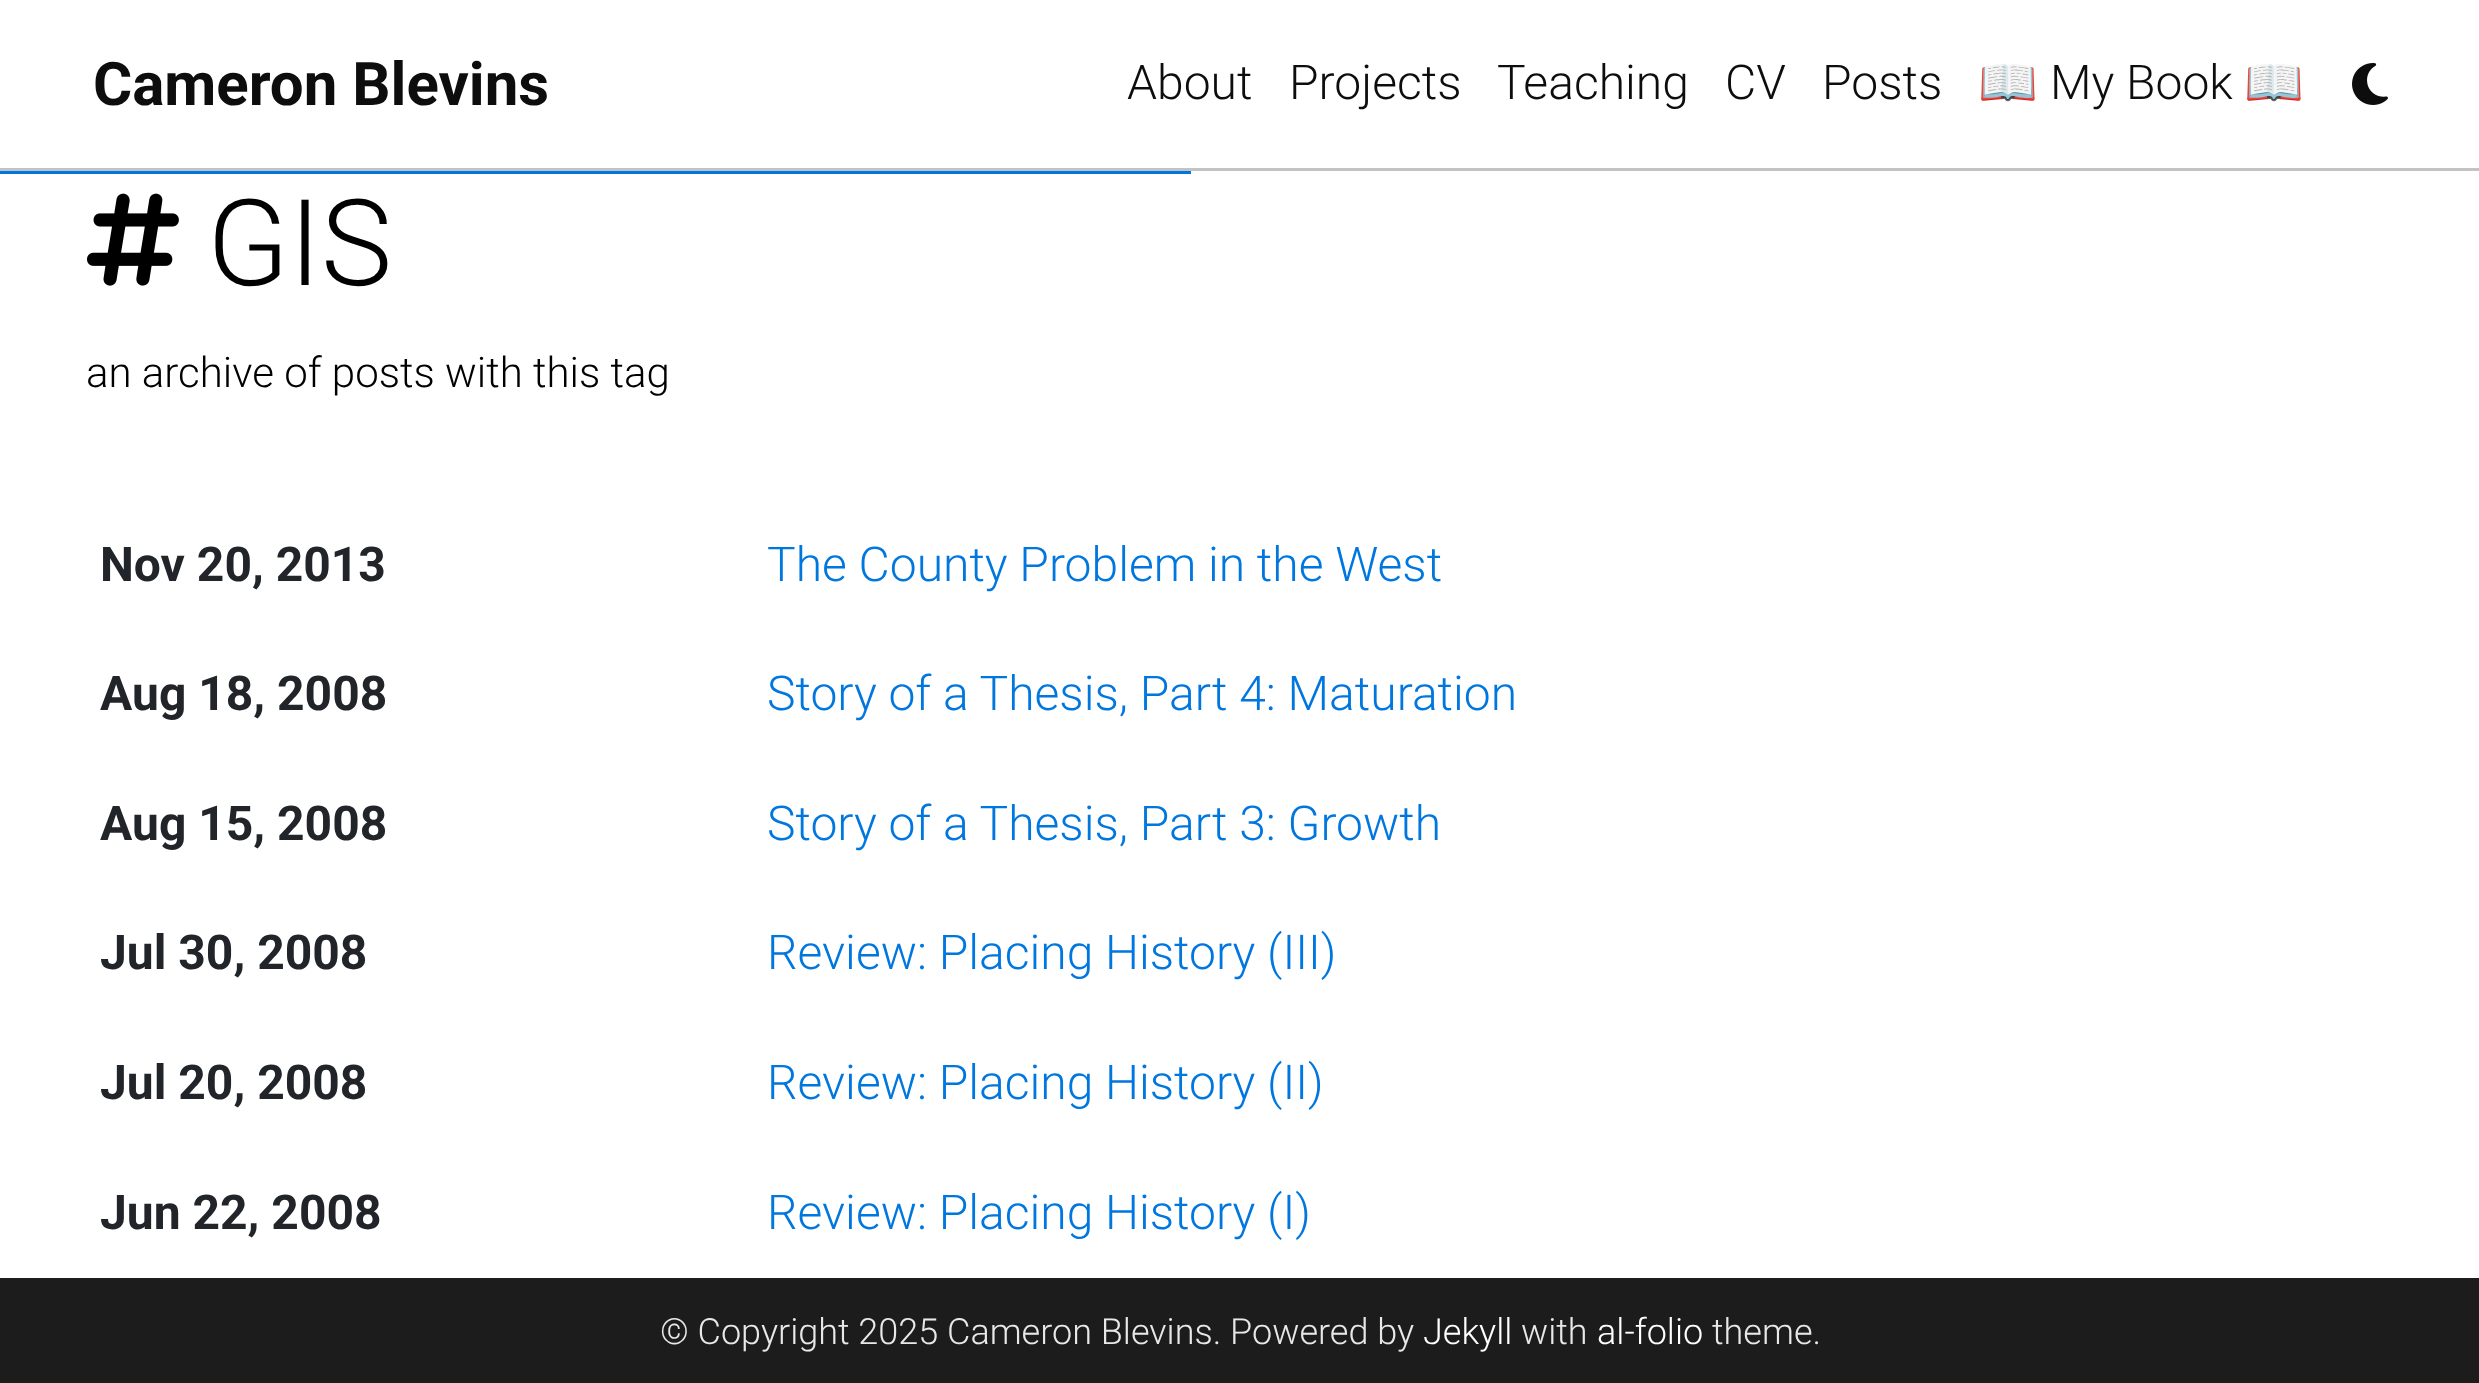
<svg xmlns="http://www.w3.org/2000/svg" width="2479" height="1383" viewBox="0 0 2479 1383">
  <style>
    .t1 { font: bold 60px Roboto; fill: #0d0d0d; }
    .t2 { font: 300 48px Roboto; fill: #0d0d0d; }
    .t3 { font: 48px Noto Color Emoji; fill: #0d0d0d; }
    .t4 { font: 300 120px Roboto; fill: #000; }
    .t5 { font: 300 42px Roboto; fill: #000; }
    .t6 { font: bold 48px Roboto; fill: #212529; }
    .t7 { font: 300 48px Roboto; fill: #0076df; }
    .t8 { font: 300 36px Roboto; fill: #e8e8e8; }
    .t9 { font: 300 36px Roboto; fill: #fff; }
  </style>
  <rect width="100%" height="100%" fill="#fff"/>
  <rect x="0" y="168" width="2479" height="3" fill="#c3c3c3"/>
  <text x="93" y="105" class="t1">Cameron Blevins</text>
  <text x="1127" y="99" class="t2">About</text>
  <text x="1289" y="99" class="t2">Projects</text>
  <text x="1497" y="99" class="t2">Teaching</text>
  <text x="1725" y="99" class="t2">CV</text>
  <text x="1822" y="99" class="t2">Posts</text>
  <text x="1978" y="99" class="t3">📖</text>
  <text x="2050" y="99" class="t2">My Book</text>
  <text x="2244" y="99" class="t3">📖</text>
  <image x="2352" y="63" width="36" height="42" href="images/1.png"/>
  <rect x="0" y="171" width="1191" height="3" fill="#0076df"/>
  <image x="87" y="193" width="92" height="93" href="images/2.png"/>
  <text x="207" y="285" class="t4">GIS</text>
  <text x="86" y="387" class="t5">an archive of posts with this tag</text>
  <text x="100" y="581" class="t6">Nov 20, 2013</text>
  <text x="767" y="581" class="t7">The County Problem in the West</text>
  <text x="100" y="710" class="t6">Aug 18, 2008</text>
  <text x="767" y="710" class="t7">Story of a Thesis, Part 4: Maturation</text>
  <text x="100" y="840" class="t6">Aug 15, 2008</text>
  <text x="767" y="840" class="t7">Story of a Thesis, Part 3: Growth</text>
  <text x="100" y="969" class="t6">Jul 30, 2008</text>
  <text x="767" y="969" class="t7">Review: Placing History (III)</text>
  <text x="100" y="1099" class="t6">Jul 20, 2008</text>
  <text x="767" y="1099" class="t7">Review: Placing History (II)</text>
  <text x="100" y="1229" class="t6">Jun 22, 2008</text>
  <text x="767" y="1229" class="t7">Review: Placing History (I)</text>
  <rect x="0" y="1278" width="2479" height="105" fill="#1c1c1d"/>
  <text x="660" y="1344" class="t8">© Copyright 2025 Cameron Blevins. Powered by</text>
  <text x="1423" y="1344" class="t9">Jekyll</text>
  <text x="1521" y="1344" class="t8">with</text>
  <text x="1597" y="1344" class="t9">al-folio</text>
  <text x="1712" y="1344" class="t8">theme.</text>
</svg>
